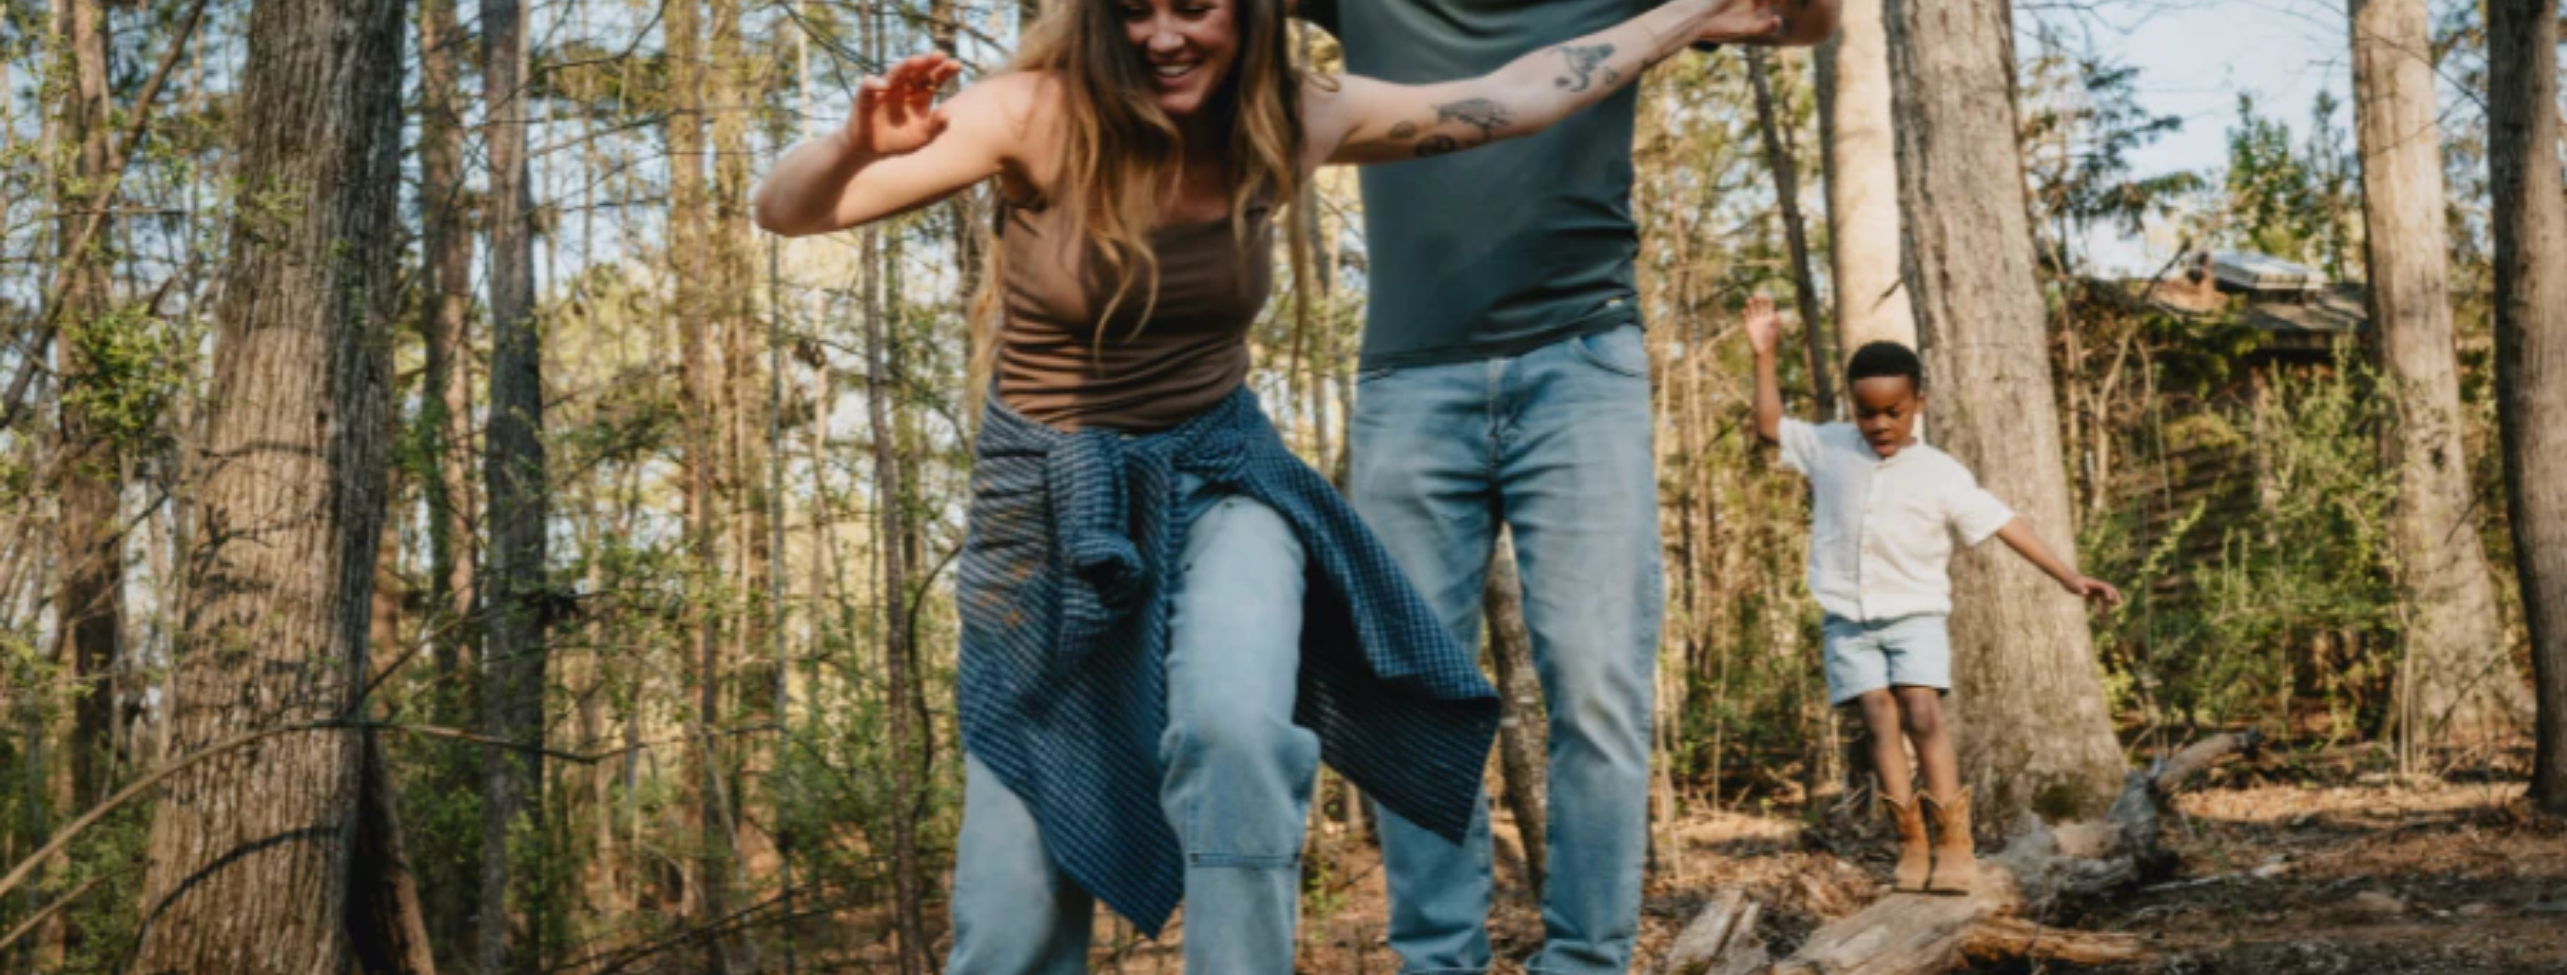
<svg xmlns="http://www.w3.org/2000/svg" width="2567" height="975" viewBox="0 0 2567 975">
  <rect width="100%" height="100%" fill="#fff"/>
  <image x="0" y="0" width="2567" height="975" href="images/1.png"/>
</svg>
